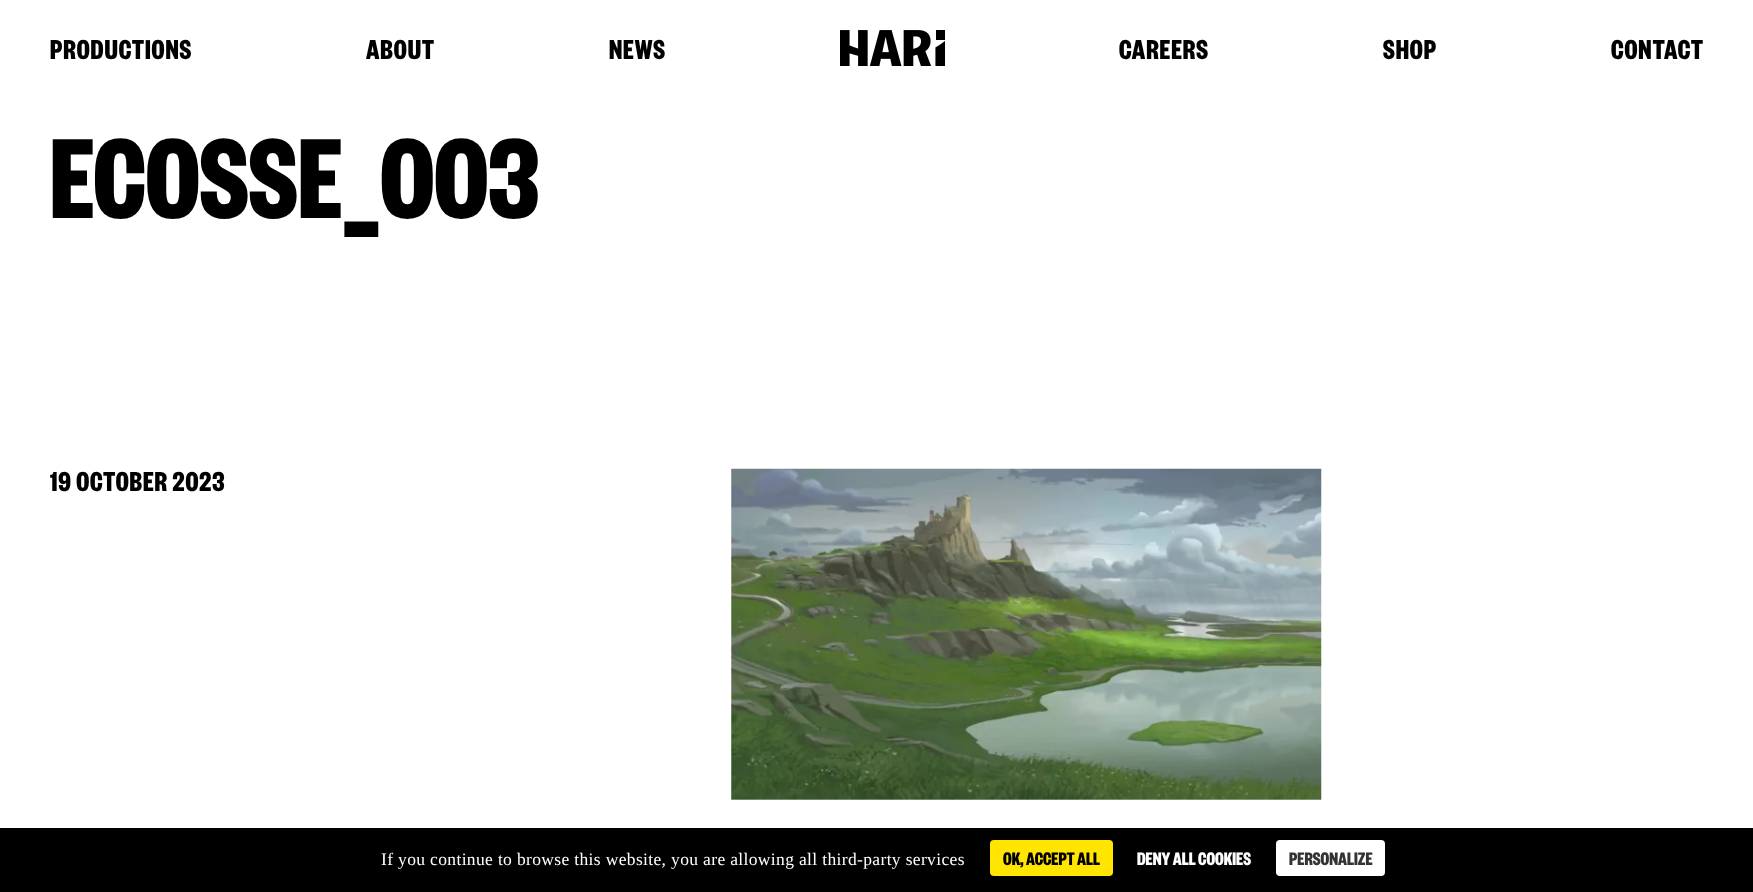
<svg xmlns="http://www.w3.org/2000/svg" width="1753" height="892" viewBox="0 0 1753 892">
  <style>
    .t1 { font: bold 30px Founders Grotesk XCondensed; letter-spacing: 0.9px; fill: #000; }
    .t2 { font: bold 125px Founders Grotesk XCondensed; fill: #000; }
    .t3 { font: 17.5px Liberation Serif; letter-spacing: 0.35px; fill: #fff; }
    .t4 { font: bold 20px Founders Grotesk XCondensed; fill: #000; }
    .t5 { font: bold 20px Founders Grotesk XCondensed; fill: #fff; }
    .t6 { font: bold 20px Founders Grotesk XCondensed; fill: #333; }
  </style>
  <rect width="100%" height="100%" fill="#fff"/>
  <text x="50" y="59" class="t1">PRODUCTIONS</text>
  <text x="366" y="59" class="t1">ABOUT</text>
  <text x="609" y="59" class="t1">NEWS</text>
  <image x="840" y="30" width="105" height="36" href="images/1.png"/>
  <text x="1119" y="59" class="t1">CAREERS</text>
  <text x="1383" y="59" class="t1">SHOP</text>
  <text x="1611" y="59" class="t1">CONTACT</text>
  <text x="50" y="218" class="t2">ECOSSE_003</text>
  <text x="50" y="491" class="t1">19 OCTOBER 2023</text>
  <image x="731" y="468" width="591" height="332" href="images/2.png"/>
  <rect x="0" y="828" width="1753" height="64" fill="#000"/>
  <text x="381" y="865" class="t3">If you continue to browse this website, you are allowing all third-party services</text>
  <rect x="990" y="840" width="123" height="36" rx="4" fill="#ffe500"/>
  <text x="1003" y="865" class="t4">OK, ACCEPT ALL</text>
  <text x="1137" y="865" class="t5">DENY ALL COOKIES</text>
  <rect x="1276" y="840" width="109" height="36" rx="4" fill="#fff"/>
  <text x="1289" y="865" class="t6">PERSONALIZE</text>
</svg>
